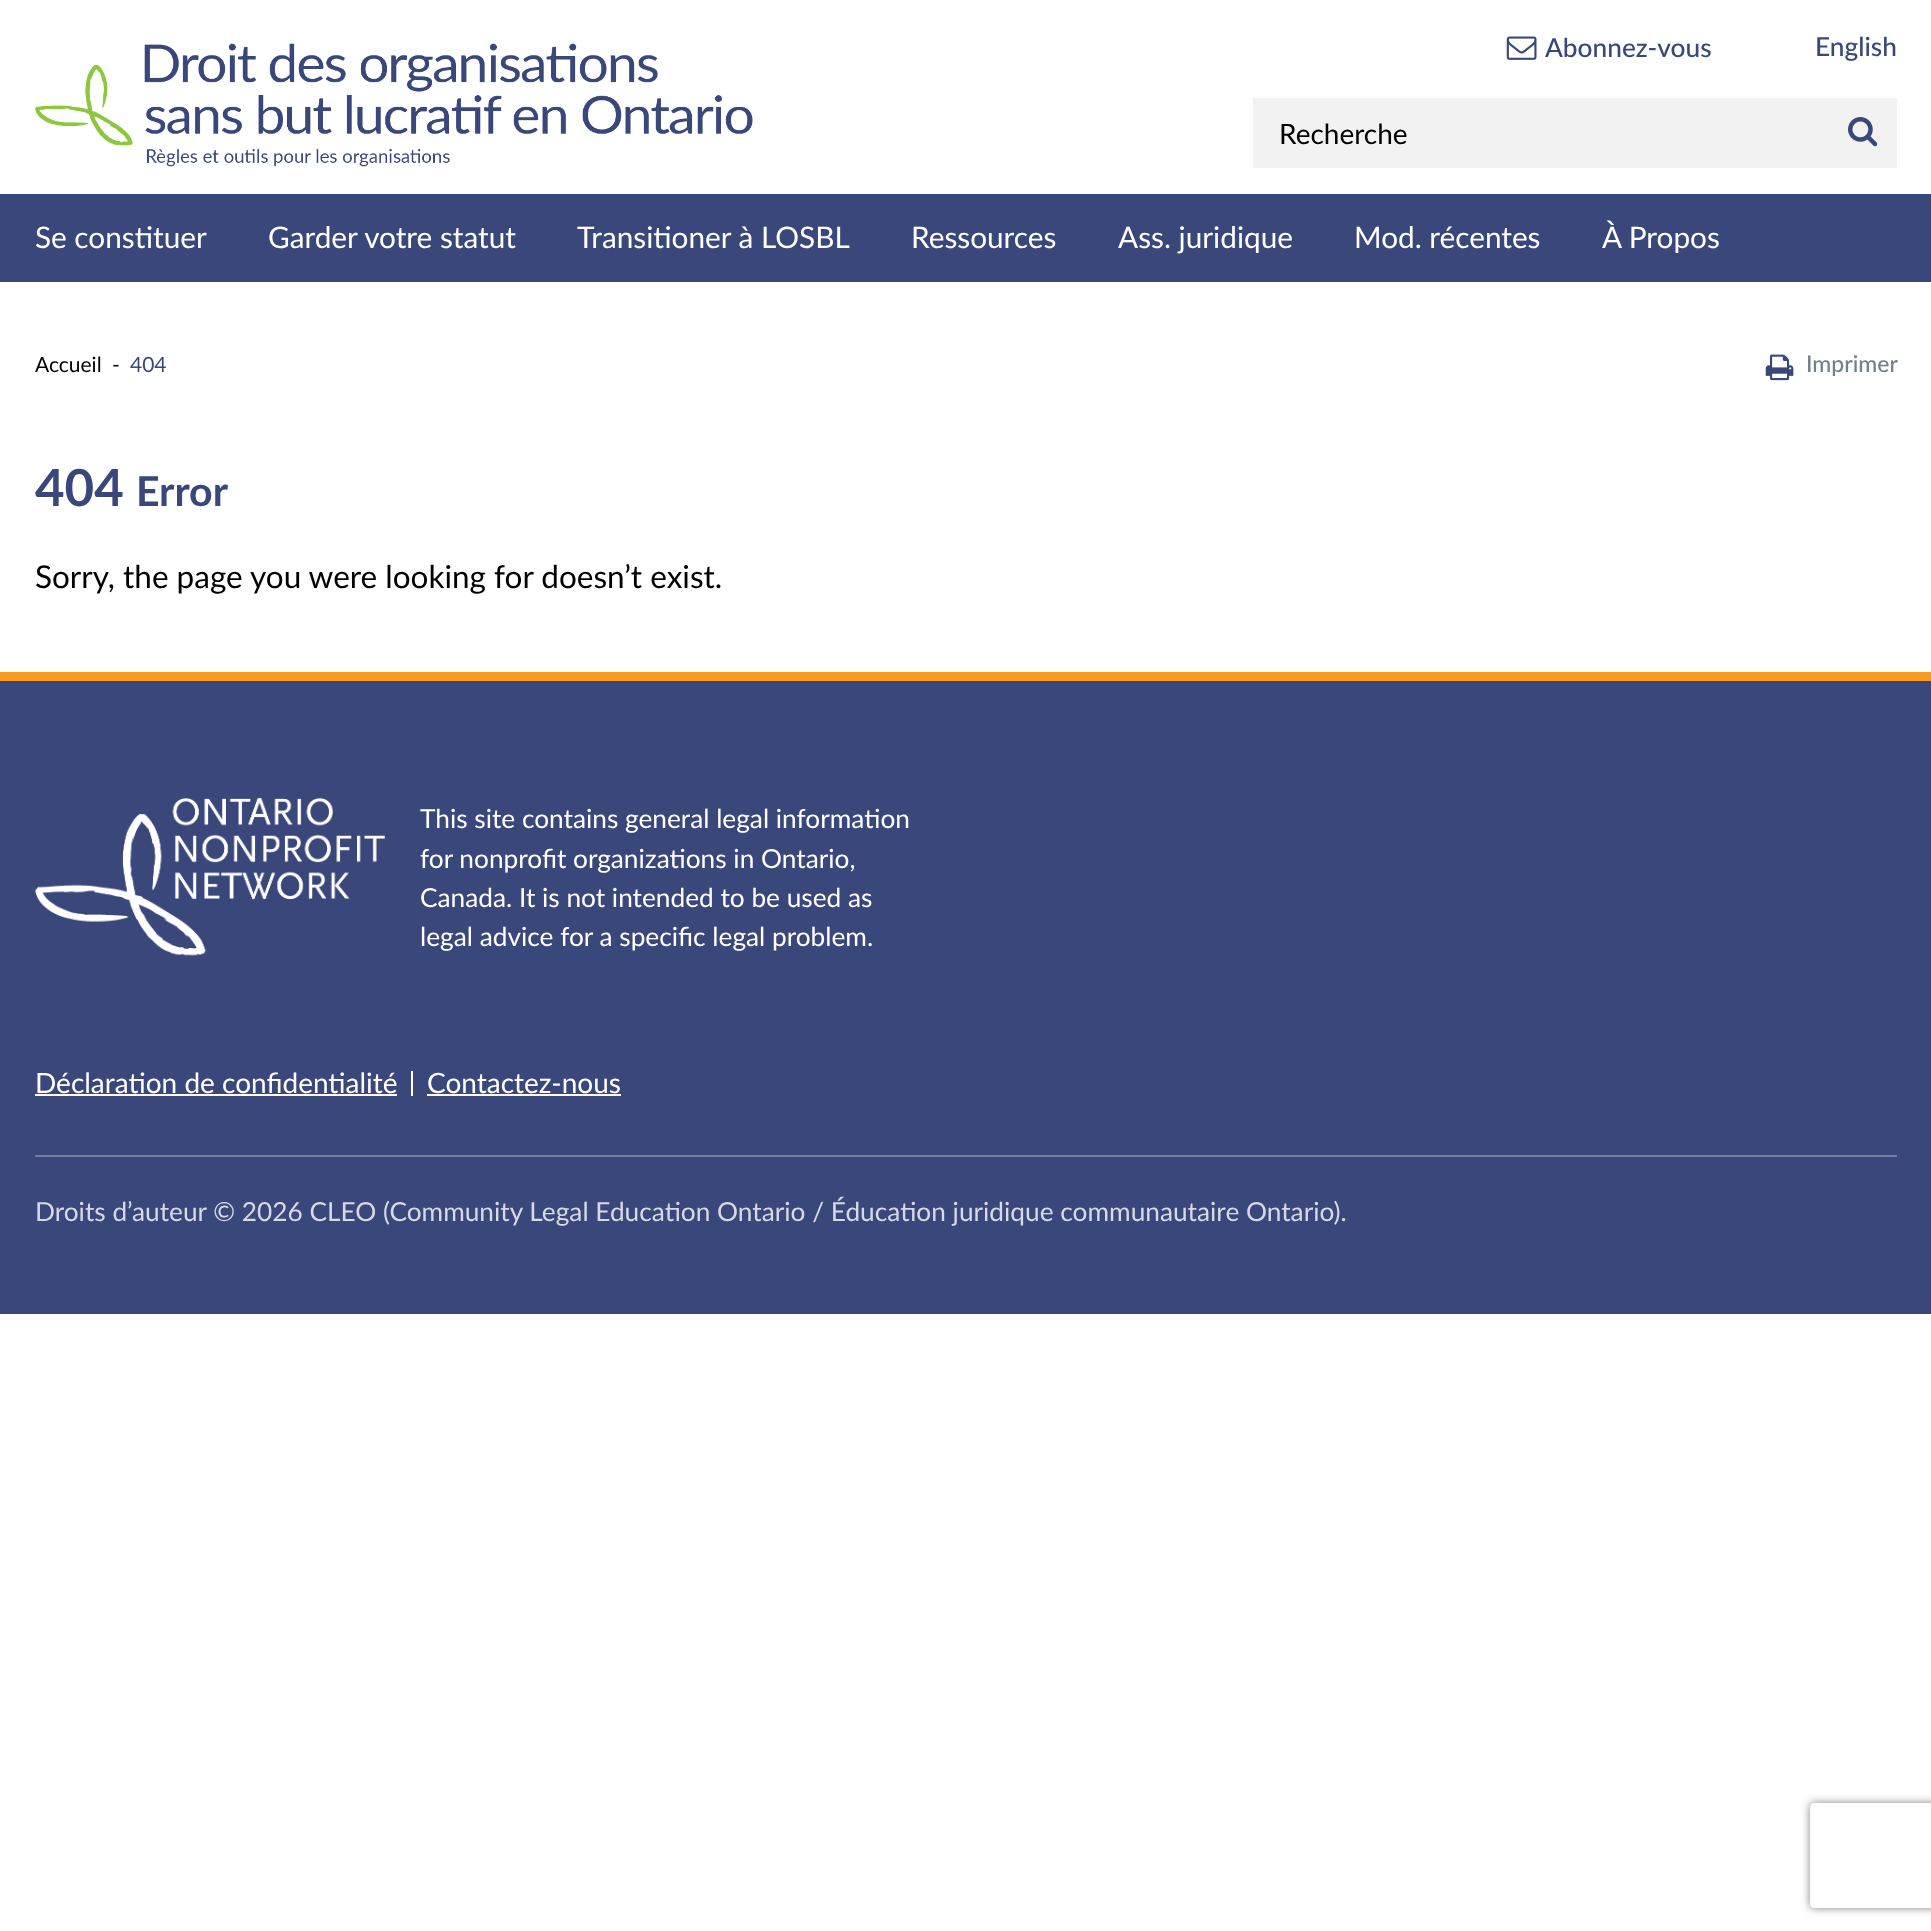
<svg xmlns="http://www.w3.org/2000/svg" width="1931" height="1931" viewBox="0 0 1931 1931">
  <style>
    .t1 { font: 500 26.25px Lato; fill: #39477b; }
    .t2 { font: 28px Lato; fill: #000; }
    .t3 { font: 29.75px Lato; fill: #fff; }
    .t4 { font: 21px Lato; fill: #000; }
    .t5 { font: 21px Lato; fill: #39477b; }
    .t6 { font: 500 23px Lato; fill: #72808e; }
    .t7 { font: bold 51px Lato; fill: #39477b; }
    .t8 { font: bold 41px Lato; fill: #39477b; }
    .t9 { font: 31.5px Lato; fill: #000; }
    .t10 { font: 26.25px Lato; fill: #fff; }
    .t11 { font: 28px Lato; fill: #fff; }
    .t12 { font: 26.25px Lato; fill: #d7dae5; }
  </style>
  <defs>
    <clipPath id="clip1"><path d="M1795 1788H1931V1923H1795ZM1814 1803H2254C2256 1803 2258 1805 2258 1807V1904C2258 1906 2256 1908 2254 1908H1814C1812 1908 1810 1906 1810 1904V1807C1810 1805 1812 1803 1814 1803Z" clip-rule="evenodd"/></clipPath>
  </defs>
  <rect width="100%" height="100%" fill="#fff"/>
  <image x="1506" y="36" width="31" height="24" href="images/1.png"/>
  <text x="1545" y="57" class="t1">Abonnez-vous</text>
  <text x="1815" y="56" class="t1">English</text>
  <rect x="1253" y="98" width="644" height="70" fill="#f2f2f2"/>
  <text x="1279" y="144" class="t2">Recherche</text>
  <image x="1848" y="117" width="30" height="30" href="images/2.png"/>
  <rect x="0" y="194" width="1931" height="88" fill="#39477b"/>
  <text x="35" y="248" class="t3">Se constituer</text>
  <text x="268" y="248" class="t3">Garder votre statut</text>
  <text x="577" y="248" class="t3">Transitioner à LOSBL</text>
  <text x="911" y="248" class="t3">Ressources</text>
  <text x="1118" y="248" class="t3">Ass. juridique</text>
  <text x="1354" y="248" class="t3">Mod. récentes</text>
  <text x="1602" y="248" class="t3">À Propos</text>
  <image x="35" y="43" width="718" height="124" href="images/3.png"/>
  <text x="35" y="372" class="t4">Accueil</text>
  <text x="112" y="372" class="t4">-</text>
  <text x="130" y="372" class="t5">404</text>
  <image x="1765" y="354" width="29" height="27" href="images/4.png"/>
  <text x="1806" y="372" class="t6">Imprimer</text>
  <text x="35" y="506" class="t7">404</text>
  <text x="136" y="506" class="t8">Error</text>
  <text x="35" y="588" class="t9">Sorry, the page you were looking for doesn’t exist.</text>
  <rect x="0" y="681" width="1931" height="633" fill="#39477b"/>
  <rect x="0" y="672" width="1931" height="9" fill="#f99b1c"/>
  <image x="35" y="798" width="350" height="158" href="images/5.png"/>
  <text x="420" y="828" class="t10">This site contains general legal information</text>
  <text x="420" y="868" class="t10">for nonprofit organizations in Ontario,</text>
  <text x="420" y="907" class="t10">Canada. It is not intended to be used as</text>
  <text x="420" y="946" class="t10">legal advice for a specific legal problem.</text>
  <text x="35" y="1093" class="t11">Déclaration de confidentialité</text>
  <rect x="35" y="1094" width="362" height="2" fill="#fff"/>
  <rect x="411" y="1071" width="2" height="25" fill="#fff"/>
  <text x="427" y="1093" class="t11">Contactez-nous</text>
  <rect x="427" y="1094" width="194" height="2" fill="#fff"/>
  <rect x="35" y="1155" width="1862" height="2" fill="#747ea3"/>
  <text x="35" y="1221" class="t12">Droits d’auteur © 2026 CLEO (Community Legal Education Ontario / Éducation juridique communautaire Ontario).</text>
  <g clip-path="url(#clip1)">
    <rect x="1810" y="1803" width="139" height="105" rx="4" fill="#808080" filter="blur(4.5px)"/>
  </g>
</svg>
